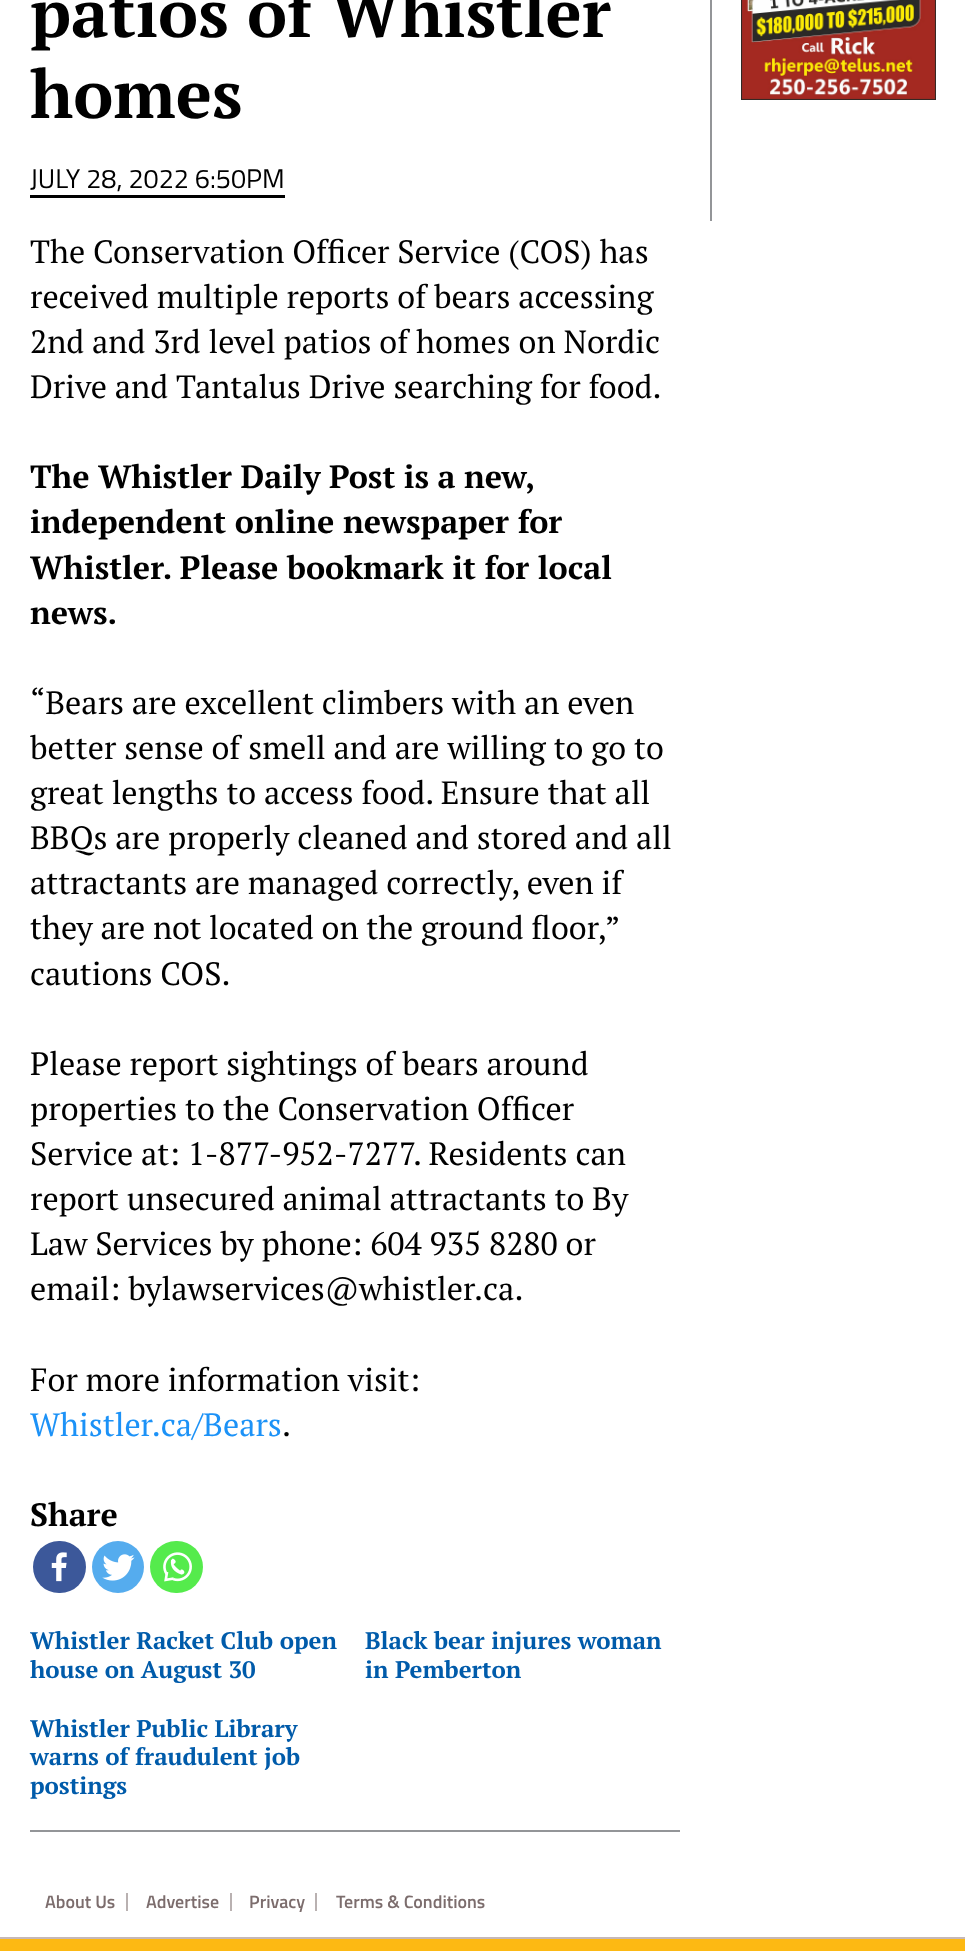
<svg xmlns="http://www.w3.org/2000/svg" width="965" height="1951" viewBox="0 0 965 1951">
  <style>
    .t1 { font: bold 67.5px PT Serif; fill: #000; }
    .t2 { font: 27px Titillium Web; fill: #000; }
    .t3 { font: 32.25px PT Serif; fill: #000; }
    .t4 { font: bold 32.25px PT Serif; fill: #000; }
    .t5 { font: 32.25px PT Serif; fill: #1c92f7; }
    .t6 { font: bold 24px PT Serif; fill: #005baa; }
    .t7 { font: 600 18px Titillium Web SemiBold; fill: #7c6d6d; }
  </style>
  <rect width="100%" height="100%" fill="#fff"/>
  <text x="30" y="37" class="t1">patios of Whistler</text>
  <text x="30" y="118" class="t1">homes</text>
  <rect x="30" y="195" width="255" height="3" fill="#000"/>
  <text x="30" y="188" class="t2">JULY 28, 2022 6:50PM</text>
  <text x="30" y="263" class="t3">The Conservation Officer Service (COS) has</text>
  <text x="30" y="308" class="t3">received multiple reports of bears accessing</text>
  <text x="30" y="353" class="t3">2nd and 3rd level patios of homes on Nordic</text>
  <text x="30" y="398" class="t3">Drive and Tantalus Drive searching for food.</text>
  <text x="30" y="488" word-spacing="-0.25" class="t4">The Whistler Daily Post is a new,</text>
  <text x="30" y="533" class="t4">independent online newspaper for</text>
  <text x="30" y="579" class="t4">Whistler. Please bookmark it for local</text>
  <text x="30" y="624" class="t4">news.</text>
  <text x="30" y="714" class="t3">“Bears are excellent climbers with an even</text>
  <text x="30" y="759" class="t3">better sense of smell and are willing to go to</text>
  <text x="30" y="804" class="t3">great lengths to access food. Ensure that all</text>
  <text x="30" y="849" class="t3">BBQs are properly cleaned and stored and all</text>
  <text x="30" y="894" class="t3">attractants are managed correctly, even if</text>
  <text x="30" y="939" word-spacing="-0.25" class="t3">they are not located on the ground floor,”</text>
  <text x="30" y="985" class="t3">cautions COS.</text>
  <text x="30" y="1075" class="t3">Please report sightings of bears around</text>
  <text x="30" y="1120" class="t3">properties to the Conservation Officer</text>
  <text x="30" y="1165" class="t3">Service at: 1-877-952-7277. Residents can</text>
  <text x="30" y="1210" class="t3">report unsecured animal attractants to By</text>
  <text x="30" y="1255" class="t3">Law Services by phone: 604 935 8280 or</text>
  <text x="30" y="1300" class="t3">email: bylawservices@whistler.ca.</text>
  <text x="30" y="1391" class="t3">For more information visit:</text>
  <text x="30" y="1436" class="t5">Whistler.ca/Bears</text>
  <text x="282" y="1436" class="t3">.</text>
  <text x="30" y="1526" class="t4">Share</text>
  <rect x="33" y="1541" width="53" height="52" rx="26" fill="#3c589a"/>
  <image x="51" y="1552" width="16" height="30" href="images/1.png"/>
  <circle cx="118" cy="1567" r="26" fill="#55acee"/>
  <image x="102" y="1554" width="33" height="27" href="images/2.png"/>
  <rect x="150" y="1541" width="53" height="52" rx="26" fill="#55eb4c"/>
  <image x="163" y="1552" width="29" height="30" href="images/3.png"/>
  <rect x="30" y="1830" width="650" height="2" fill="#939598"/>
  <text x="30" y="1649" class="t6">Whistler Racket Club open</text>
  <text x="30" y="1678" class="t6">house on August 30</text>
  <text x="365" y="1649" class="t6">Black bear injures woman</text>
  <text x="365" y="1678" class="t6">in Pemberton</text>
  <text x="30" y="1737" class="t6">Whistler Public Library</text>
  <text x="30" y="1765" class="t6">warns of fraudulent job</text>
  <text x="30" y="1794" class="t6">postings</text>
  <rect x="710" y="0" width="2" height="221" fill="#939598"/>
  <image x="741" y="0" width="195" height="100" href="images/4.png"/>
  <rect x="126" y="1893" width="2" height="18" fill="#b9b1b1"/>
  <text x="45" y="1908" class="t7">About Us</text>
  <rect x="230" y="1893" width="2" height="18" fill="#b9b1b1"/>
  <text x="146" y="1908" class="t7">Advertise</text>
  <rect x="315" y="1893" width="2" height="18" fill="#b9b1b1"/>
  <text x="249" y="1908" class="t7">Privacy</text>
  <text x="336" y="1908" class="t7">Terms &amp; Conditions</text>
  <rect x="0" y="1939" width="965" height="12" fill="#fdb913"/>
  <rect x="0" y="1937" width="965" height="2" fill="#c6b8b8"/>
</svg>
